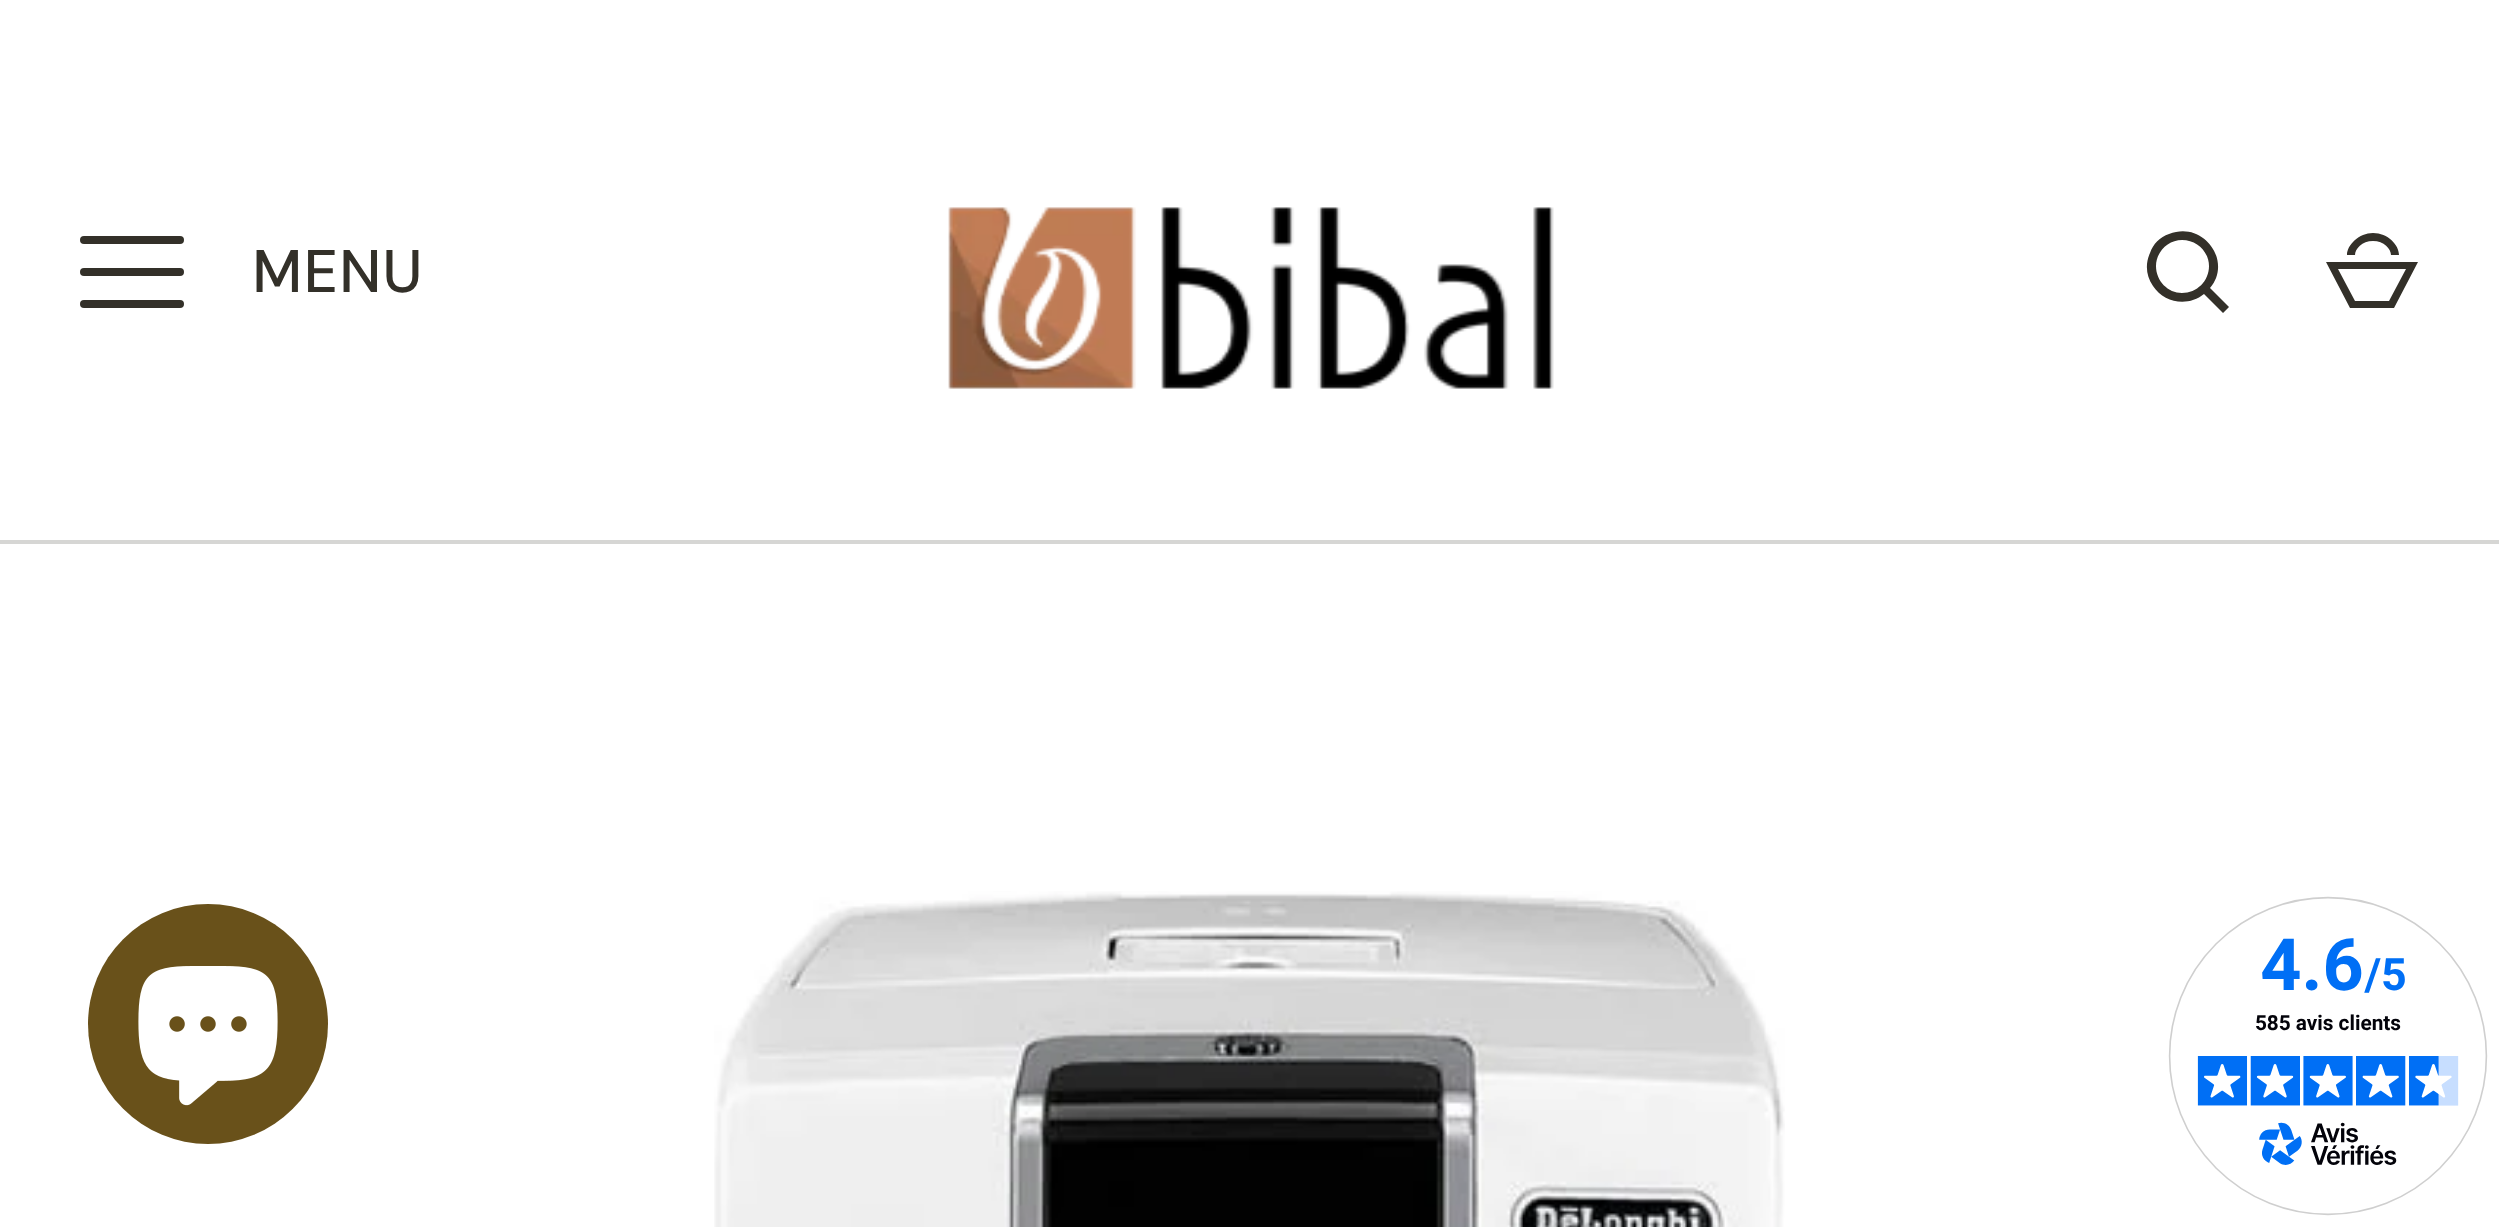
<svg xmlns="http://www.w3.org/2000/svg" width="2499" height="1227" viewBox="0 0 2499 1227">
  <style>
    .t1 { font: 500 60px DM Sans; letter-spacing: 1px; fill: #333029; }
  </style>
  <rect width="100%" height="100%" fill="#fff"/>
  <rect x="80" y="236" width="104" height="8" rx="4" fill="#333029"/>
  <rect x="80" y="268" width="104" height="8" rx="4" fill="#333029"/>
  <rect x="80" y="300" width="104" height="8" rx="4" fill="#333029"/>
  <text x="252" y="292" class="t1">MENU</text>
  <image x="948" y="207" width="606" height="182" href="images/1.png"/>
  <path d="M2229 307L2210 288C2233 261 2203 220 2169 234C2160 237 2153 244 2150 253C2145 264 2146 276 2153 286C2164 303 2188 307 2204 294L2223 313ZM2156 266C2156 252 2168 240 2182 240C2197 240 2209 252 2209 266C2209 281 2197 293 2182 293C2168 293 2156 281 2156 266Z" fill="#333029"/>
  <path d="M2326 262L2350 308H2394L2418 262ZM2389 301H2355L2338 269H2406ZM2373 241C2384 241 2391 249 2391 255H2399C2399 245 2388 233 2373 233C2359 233 2347 245 2347 255H2355C2355 249 2362 241 2373 241Z" fill="#333029"/>
  <rect x="0" y="540" width="2499" height="4" fill="#d6d6d4"/>
  <circle cx="208" cy="1024" r="120" fill="#69511a"/>
  <image x="138" y="966" width="140" height="140" href="images/2.png"/>
  <image x="714" y="891" width="1071" height="336" href="images/3.png"/>
  <image x="2168" y="896" width="320" height="320" href="images/4.png"/>
</svg>
